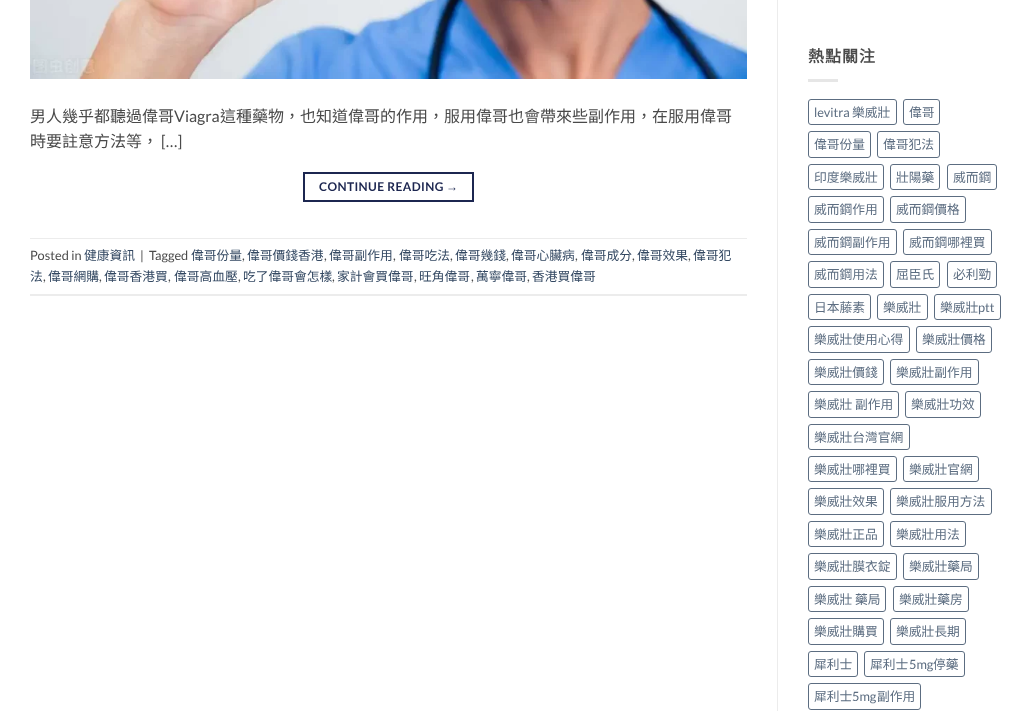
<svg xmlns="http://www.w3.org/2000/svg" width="1036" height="711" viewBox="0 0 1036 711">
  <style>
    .t1 { font: 16px Noto Sans CJK HK; fill: #4a4a4a; }
    .t2 { font: 16px Lato; fill: #4a4a4a; }
    .t3 { font: bold 12px Lato; letter-spacing: 0.4px; fill: #1c2650; }
    .t4 { font: bold 12px Liberation Sans; letter-spacing: 0.4px; fill: #1c2650; }
    .t5 { font: 12.75px Lato; fill: #4a4a4a; }
    .t6 { font: 12.75px Noto Sans CJK HK; fill: #334862; }
    .t7 { font: bold 16px Noto Sans CJK HK; letter-spacing: 1px; fill: #4a4a4a; }
    .t8 { font: 12.75px Lato; fill: #5c6d81; }
    .t9 { font: 12.75px Noto Sans CJK HK; fill: #5c6d81; }
  </style>
  <rect width="100%" height="100%" fill="#fff"/>
  <image x="30" y="0" width="717" height="79" href="images/1.png"/>
  <text x="30" y="122" class="t1">男人幾乎都聽過偉哥</text>
  <text x="174" y="122" class="t2">Viagra</text>
  <text x="220" y="122" class="t1">這種藥物，也知道偉哥的作用，服用偉哥也會帶來些副作用，在服用偉哥</text>
  <text x="30" y="147" class="t1">時要註意方法等，</text>
  <text x="161" y="147" class="t2">[…]</text>
  <rect x="304" y="173" width="169" height="28" fill="none" stroke="#1c2650" stroke-width="2"/>
  <text x="319" y="191" class="t3">CONTINUE READING</text>
  <text x="446" y="191" class="t4">→</text>
  <rect x="30" y="238" width="717" height="1" fill="#ececec"/>
  <rect x="30" y="294" width="717" height="2" fill="#ececec"/>
  <text x="30" y="260" class="t5">Posted in</text>
  <text x="84" y="260" class="t6">健康資訊</text>
  <text x="140" y="260" class="t5">|</text>
  <text x="149" y="260" class="t5">Tagged</text>
  <text x="191" y="260" class="t6">偉哥份量</text>
  <text x="242" y="260" class="t5">,</text>
  <text x="247" y="260" class="t6">偉哥價錢香港</text>
  <text x="324" y="260" class="t5">,</text>
  <text x="329" y="260" class="t6">偉哥副作用</text>
  <text x="393" y="260" class="t5">,</text>
  <text x="399" y="260" class="t6">偉哥吃法</text>
  <text x="450" y="260" class="t5">,</text>
  <text x="455" y="260" class="t6">偉哥幾錢</text>
  <text x="506" y="260" class="t5">,</text>
  <text x="511" y="260" class="t6">偉哥心臟病</text>
  <text x="575" y="260" class="t5">,</text>
  <text x="581" y="260" class="t6">偉哥成分</text>
  <text x="632" y="260" class="t5">,</text>
  <text x="637" y="260" class="t6">偉哥效果</text>
  <text x="688" y="260" class="t5">,</text>
  <text x="693" y="260" class="t6">偉哥犯</text>
  <text x="30" y="281" class="t6">法</text>
  <text x="43" y="281" class="t5">,</text>
  <text x="48" y="281" class="t6">偉哥網購</text>
  <text x="99" y="281" class="t5">,</text>
  <text x="104" y="281" class="t6">偉哥香港買</text>
  <text x="168" y="281" class="t5">,</text>
  <text x="174" y="281" class="t6">偉哥高血壓</text>
  <text x="238" y="281" class="t5">,</text>
  <text x="243" y="281" class="t6">吃了偉哥會怎樣</text>
  <text x="332" y="281" class="t5">,</text>
  <text x="337" y="281" class="t6">家計會買偉哥</text>
  <text x="414" y="281" class="t5">,</text>
  <text x="419" y="281" class="t6">旺角偉哥</text>
  <text x="471" y="281" class="t5">,</text>
  <text x="476" y="281" class="t6">萬寧偉哥</text>
  <text x="527" y="281" class="t5">,</text>
  <text x="532" y="281" class="t6">香港買偉哥</text>
  <rect x="777" y="0" width="1" height="711" fill="#ececec"/>
  <text x="808" y="62" class="t7">熱點關注</text>
  <rect x="808" y="79" width="30" height="3" fill="#e6e6e6"/>
  <rect x="808.5" y="99.5" width="88" height="25" rx="2.5" fill="none" stroke="#5c6d81"/>
  <text x="814" y="117" class="t8">levitra</text>
  <text x="852" y="117" class="t9">樂威壯</text>
  <rect x="903.5" y="99.5" width="36" height="25" rx="2.5" fill="none" stroke="#5c6d81"/>
  <text x="909" y="117" class="t9">偉哥</text>
  <rect x="808.5" y="131.5" width="62" height="26" rx="2.5" fill="none" stroke="#5c6d81"/>
  <text x="814" y="149" class="t9">偉哥份量</text>
  <rect x="877.5" y="131.5" width="62" height="26" rx="2.5" fill="none" stroke="#5c6d81"/>
  <text x="883" y="149" class="t9">偉哥犯法</text>
  <rect x="808.5" y="164.5" width="75" height="25" rx="2.5" fill="none" stroke="#5c6d81"/>
  <text x="814" y="182" class="t9">印度樂威壯</text>
  <rect x="890.5" y="164.5" width="49" height="25" rx="2.5" fill="none" stroke="#5c6d81"/>
  <text x="896" y="182" class="t9">壯陽藥</text>
  <rect x="947.5" y="164.5" width="49" height="25" rx="2.5" fill="none" stroke="#5c6d81"/>
  <text x="953" y="182" class="t9">威而鋼</text>
  <rect x="808.5" y="196.5" width="75" height="26" rx="2.5" fill="none" stroke="#5c6d81"/>
  <text x="814" y="214" class="t9">威而鋼作用</text>
  <rect x="890.5" y="196.5" width="75" height="26" rx="2.5" fill="none" stroke="#5c6d81"/>
  <text x="896" y="214" class="t9">威而鋼價格</text>
  <rect x="808.5" y="229.5" width="88" height="25" rx="2.5" fill="none" stroke="#5c6d81"/>
  <text x="814" y="247" class="t9">威而鋼副作用</text>
  <rect x="903.5" y="229.5" width="88" height="25" rx="2.5" fill="none" stroke="#5c6d81"/>
  <text x="909" y="247" class="t9">威而鋼哪裡買</text>
  <rect x="808.5" y="261.5" width="75" height="26" rx="2.5" fill="none" stroke="#5c6d81"/>
  <text x="814" y="279" class="t9">威而鋼用法</text>
  <rect x="890.5" y="261.5" width="49" height="26" rx="2.5" fill="none" stroke="#5c6d81"/>
  <text x="896" y="279" class="t9">屈臣氏</text>
  <rect x="947.5" y="261.5" width="49" height="26" rx="2.5" fill="none" stroke="#5c6d81"/>
  <text x="953" y="279" class="t9">必利勁</text>
  <rect x="808.5" y="294.5" width="62" height="25" rx="2.5" fill="none" stroke="#5c6d81"/>
  <text x="814" y="312" class="t9">日本藤素</text>
  <rect x="877.5" y="294.5" width="50" height="25" rx="2.5" fill="none" stroke="#5c6d81"/>
  <text x="883" y="312" class="t9">樂威壯</text>
  <rect x="934.5" y="294.5" width="66" height="25" rx="2.5" fill="none" stroke="#5c6d81"/>
  <text x="940" y="312" class="t9">樂威壯</text>
  <text x="978" y="312" class="t8">ptt</text>
  <rect x="808.5" y="326.5" width="101" height="26" rx="2.5" fill="none" stroke="#5c6d81"/>
  <text x="814" y="344" class="t9">樂威壯使用心得</text>
  <rect x="916.5" y="326.5" width="75" height="26" rx="2.5" fill="none" stroke="#5c6d81"/>
  <text x="922" y="344" class="t9">樂威壯價格</text>
  <rect x="808.5" y="359.5" width="75" height="25" rx="2.5" fill="none" stroke="#5c6d81"/>
  <text x="814" y="377" class="t9">樂威壯價錢</text>
  <rect x="890.5" y="359.5" width="88" height="25" rx="2.5" fill="none" stroke="#5c6d81"/>
  <text x="896" y="377" class="t9">樂威壯副作用</text>
  <rect x="808.5" y="391.5" width="90" height="26" rx="2.5" fill="none" stroke="#5c6d81"/>
  <text x="814" y="409" class="t9">樂威壯 副作用</text>
  <rect x="905.5" y="391.5" width="75" height="26" rx="2.5" fill="none" stroke="#5c6d81"/>
  <text x="911" y="409" class="t9">樂威壯功效</text>
  <rect x="808.5" y="424.5" width="101" height="25" rx="2.5" fill="none" stroke="#5c6d81"/>
  <text x="814" y="442" class="t9">樂威壯台灣官網</text>
  <rect x="808.5" y="456.5" width="88" height="25" rx="2.5" fill="none" stroke="#5c6d81"/>
  <text x="814" y="474" class="t9">樂威壯哪裡買</text>
  <rect x="903.5" y="456.5" width="75" height="25" rx="2.5" fill="none" stroke="#5c6d81"/>
  <text x="909" y="474" class="t9">樂威壯官網</text>
  <rect x="808.5" y="488.5" width="75" height="26" rx="2.5" fill="none" stroke="#5c6d81"/>
  <text x="814" y="506" class="t9">樂威壯效果</text>
  <rect x="890.5" y="488.5" width="101" height="26" rx="2.5" fill="none" stroke="#5c6d81"/>
  <text x="896" y="506" class="t9">樂威壯服用方法</text>
  <rect x="808.5" y="521.5" width="75" height="25" rx="2.5" fill="none" stroke="#5c6d81"/>
  <text x="814" y="539" class="t9">樂威壯正品</text>
  <rect x="890.5" y="521.5" width="75" height="25" rx="2.5" fill="none" stroke="#5c6d81"/>
  <text x="896" y="539" class="t9">樂威壯用法</text>
  <rect x="808.5" y="553.5" width="88" height="26" rx="2.5" fill="none" stroke="#5c6d81"/>
  <text x="814" y="571" class="t9">樂威壯膜衣錠</text>
  <rect x="903.5" y="553.5" width="75" height="26" rx="2.5" fill="none" stroke="#5c6d81"/>
  <text x="909" y="571" class="t9">樂威壯藥局</text>
  <rect x="808.5" y="586.5" width="77" height="25" rx="2.5" fill="none" stroke="#5c6d81"/>
  <text x="814" y="604" class="t9">樂威壯 藥局</text>
  <rect x="893.5" y="586.5" width="75" height="25" rx="2.5" fill="none" stroke="#5c6d81"/>
  <text x="899" y="604" class="t9">樂威壯藥房</text>
  <rect x="808.5" y="618.5" width="75" height="26" rx="2.5" fill="none" stroke="#5c6d81"/>
  <text x="814" y="636" class="t9">樂威壯購買</text>
  <rect x="890.5" y="618.5" width="75" height="26" rx="2.5" fill="none" stroke="#5c6d81"/>
  <text x="896" y="636" class="t9">樂威壯長期</text>
  <rect x="808.5" y="651.5" width="49" height="25" rx="2.5" fill="none" stroke="#5c6d81"/>
  <text x="814" y="669" class="t9">犀利士</text>
  <rect x="864.5" y="651.5" width="100" height="25" rx="2.5" fill="none" stroke="#5c6d81"/>
  <text x="870" y="669" class="t9">犀利士</text>
  <text x="909" y="669" class="t8">5mg</text>
  <text x="933" y="669" class="t9">停藥</text>
  <rect x="808.5" y="683.5" width="112" height="26" rx="2.5" fill="none" stroke="#5c6d81"/>
  <text x="814" y="701" class="t9">犀利士</text>
  <text x="852" y="701" class="t8">5mg</text>
  <text x="877" y="701" class="t9">副作用</text>
</svg>
